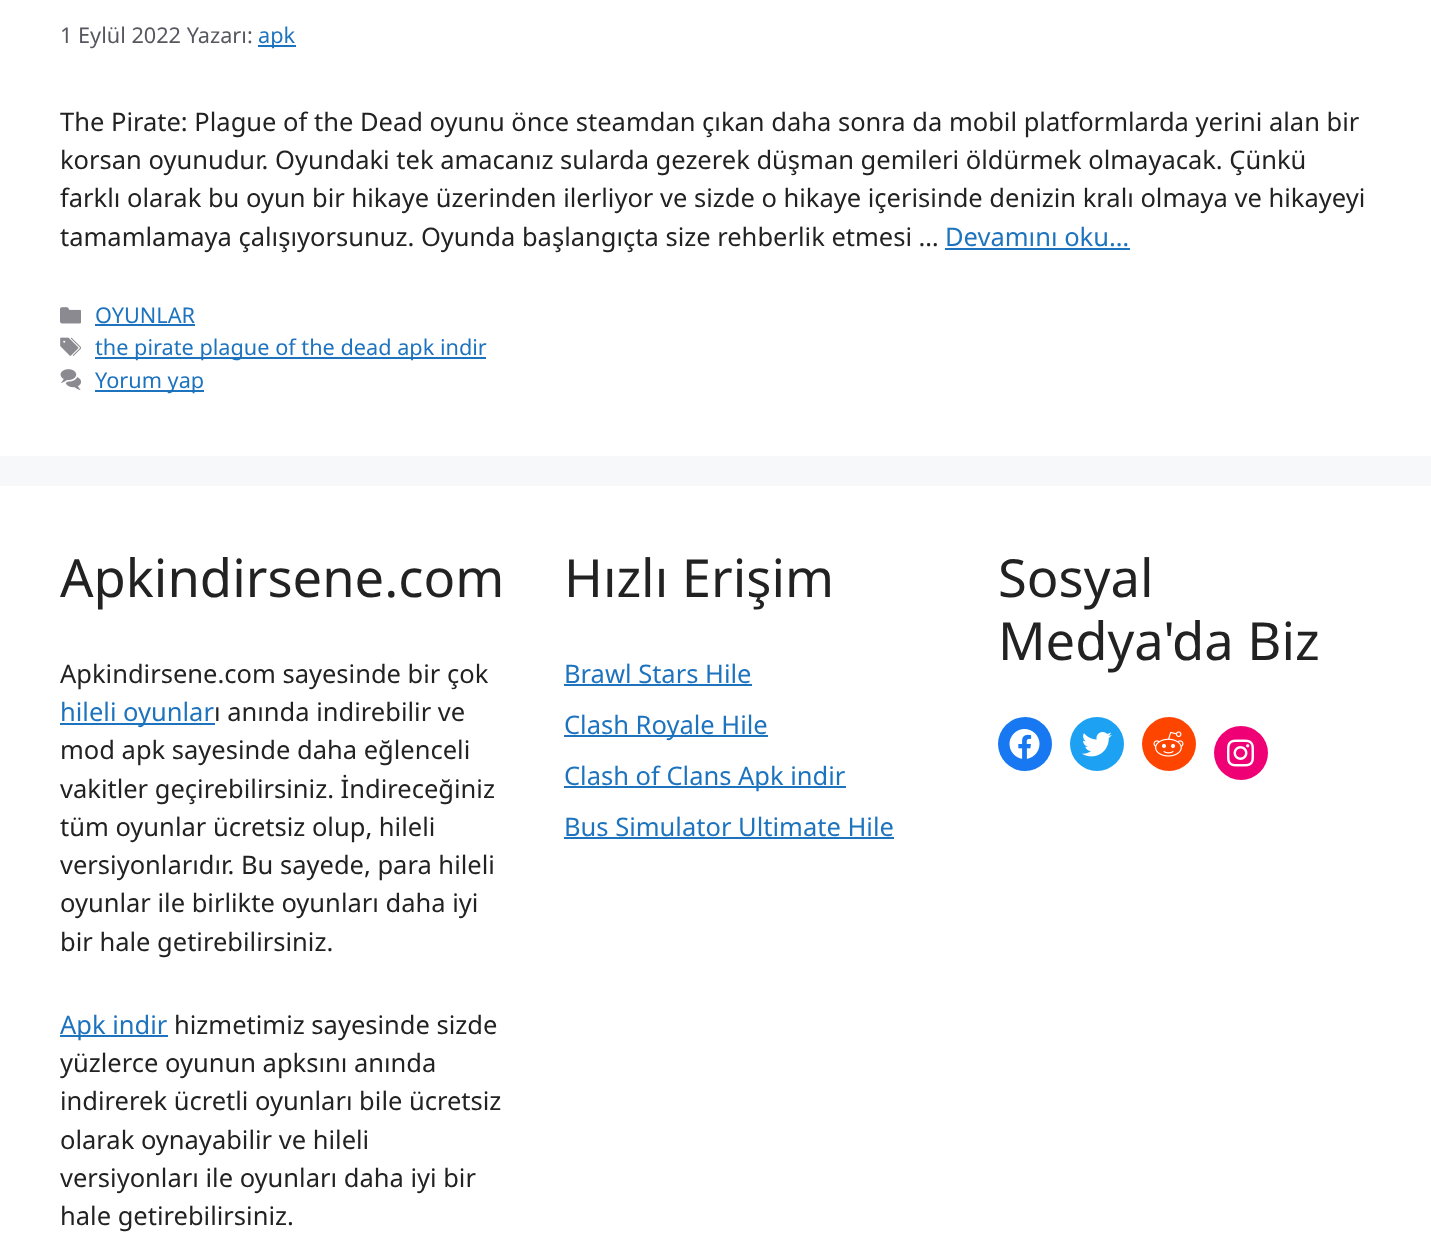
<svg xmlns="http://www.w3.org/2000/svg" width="1431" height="1246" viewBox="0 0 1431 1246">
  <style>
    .t1 { font: 21.7px Noto Sans; fill: #575760; }
    .t2 { font: 21.7px Noto Sans; fill: #1e73be; }
    .t3 { font: 25.5px Noto Sans; fill: #222; }
    .t4 { font: 25.5px Noto Sans; fill: #1e73be; }
    .t5 { font: 52.5px Noto Sans; fill: #222; }
  </style>
  <rect width="100%" height="100%" fill="#f7f8f9"/>
  <rect x="0" y="0" width="1431" height="456" fill="#fff"/>
  <text x="60" y="43" class="t1">1 Eylül 2022 Yazarı:</text>
  <rect x="258" y="45" width="38" height="2" fill="#1e73be"/>
  <text x="258" y="43" class="t2">apk</text>
  <text x="60" y="131" class="t3">The Pirate: Plague of the Dead oyunu önce steamdan çıkan daha sonra da mobil platformlarda yerini alan bir</text>
  <text x="60" y="169" class="t3">korsan oyunudur. Oyundaki tek amacanız sularda gezerek düşman gemileri öldürmek olmayacak. Çünkü</text>
  <text x="60" y="207" class="t3">farklı olarak bu oyun bir hikaye üzerinden ilerliyor ve sizde o hikaye içerisinde denizin kralı olmaya ve hikayeyi</text>
  <text x="60" y="246" class="t3">tamamlamaya çalışıyorsunuz. Oyunda başlangıçta size rehberlik etmesi …</text>
  <text x="945" y="246" class="t4">Devamını oku…</text>
  <rect x="945" y="248" width="185" height="2" fill="#1e73be"/>
  <image x="60" y="307" width="21" height="17" href="images/1.png"/>
  <text x="95" y="323" class="t2">OYUNLAR</text>
  <rect x="95" y="324" width="100" height="2" fill="#1e73be"/>
  <image x="60" y="337" width="21" height="19" href="images/2.png"/>
  <rect x="95" y="357" width="391" height="2" fill="#1e73be"/>
  <text x="95" y="355" class="t2">the pirate plague of the dead apk indir</text>
  <image x="60" y="369" width="21" height="21" href="images/3.png"/>
  <rect x="95" y="390" width="109" height="2" fill="#1e73be"/>
  <text x="95" y="388" class="t2">Yorum yap</text>
  <rect x="0" y="486" width="1431" height="760" fill="#fff"/>
  <text x="60" y="597" class="t5">Apkindirsene.com</text>
  <text x="60" y="683" class="t3">Apkindirsene.com sayesinde bir çok</text>
  <rect x="60" y="723" width="155" height="2" fill="#1e73be"/>
  <text x="60" y="721" class="t4">hileli oyunlar</text>
  <text x="214" y="721" class="t3">ı anında indirebilir ve</text>
  <text x="60" y="759" class="t3">mod apk sayesinde daha eğlenceli</text>
  <text x="60" y="798" class="t3">vakitler geçirebilirsiniz. İndireceğiniz</text>
  <text x="60" y="836" class="t3">tüm oyunlar ücretsiz olup, hileli</text>
  <text x="60" y="874" class="t3">versiyonlarıdır. Bu sayede, para hileli</text>
  <text x="60" y="912" class="t3">oyunlar ile birlikte oyunları daha iyi</text>
  <text x="60" y="951" class="t3">bir hale getirebilirsiniz.</text>
  <rect x="60" y="1035" width="108" height="2" fill="#1e73be"/>
  <text x="60" y="1034" class="t4">Apk indir</text>
  <text x="174" y="1034" class="t3">hizmetimiz sayesinde sizde</text>
  <text x="60" y="1072" class="t3">yüzlerce oyunun apksını anında</text>
  <text x="60" y="1110" class="t3">indirerek ücretli oyunları bile ücretsiz</text>
  <text x="60" y="1149" class="t3">olarak oynayabilir ve hileli</text>
  <text x="60" y="1187" class="t3">versiyonları ile oyunları daha iyi bir</text>
  <text x="60" y="1225" class="t3">hale getirebilirsiniz.</text>
  <text x="564" y="597" class="t5">Hızlı Erişim</text>
  <text x="564" y="683" class="t4">Brawl Stars Hile</text>
  <rect x="564" y="684" width="188" height="2" fill="#1e73be"/>
  <rect x="564" y="735" width="204" height="2" fill="#1e73be"/>
  <text x="564" y="734" class="t4">Clash Royale Hile</text>
  <rect x="564" y="786" width="282" height="2" fill="#1e73be"/>
  <text x="564" y="785" class="t4">Clash of Clans Apk indir</text>
  <text x="564" y="836" class="t4">Bus Simulator Ultimate Hile</text>
  <rect x="564" y="837" width="330" height="2" fill="#1e73be"/>
  <text x="998" y="597" class="t5">Sosyal</text>
  <text x="998" y="660" class="t5">Medya'da Biz</text>
  <circle cx="1025" cy="744" r="27" fill="#1778f2"/>
  <image x="1009" y="729" width="31" height="30" href="images/4.png"/>
  <circle cx="1097" cy="744" r="27" fill="#1da1f2"/>
  <image x="1082" y="732" width="30" height="25" href="images/5.png"/>
  <circle cx="1169" cy="744" r="27" fill="#fe4500"/>
  <image x="1153" y="731" width="31" height="26" href="images/6.png"/>
  <circle cx="1241" cy="753" r="27" fill="#f00075"/>
  <image x="1227" y="739" width="27" height="28" href="images/7.png"/>
</svg>
